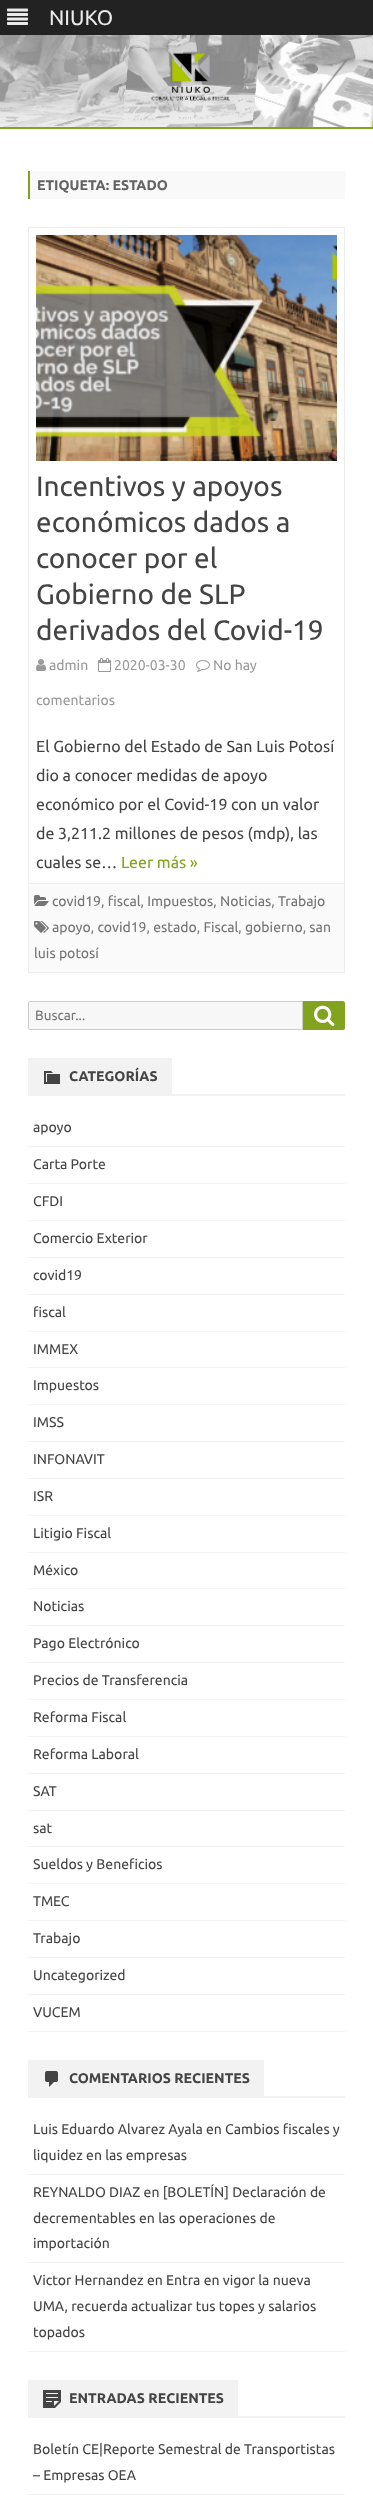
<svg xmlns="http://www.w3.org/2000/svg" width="373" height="2504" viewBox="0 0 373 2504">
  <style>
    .t1 { font: 21px Ubuntu; fill: #eaeaea; }
    .t2 { font: bold 14px Ubuntu; fill: #636363; }
    .t3 { font: 28px Ubuntu; fill: #444; }
    .t4 { font: 14px Ubuntu; fill: #9a9a9a; }
    .t5 { font: 16px Ubuntu; fill: #444; }
    .t6 { font: 16px Ubuntu; fill: #82a31d; }
    .t7 { font: 14px Ubuntu; fill: #757575; }
    .t8 { font: 13.5px Ubuntu; fill: #757575; }
    .t9 { font: bold 14px Ubuntu; fill: #444; }
    .t10 { font: 14px Ubuntu; fill: #444; }
  </style>
  <rect width="100%" height="100%" fill="#fff"/>
  <rect x="0" y="0" width="373" height="35" fill="#222"/>
  <image x="7" y="8" width="21" height="17" href="images/1.png"/>
  <text x="49" y="25" class="t1">NIUKO</text>
  <image x="0" y="35" width="373" height="92" href="images/2.png"/>
  <rect x="0" y="127" width="373" height="2" fill="#82a31d"/>
  <rect x="30" y="171" width="315" height="28" fill="#f9f9f9"/>
  <rect x="28" y="171" width="2" height="28" fill="#82a31d"/>
  <text x="37" y="190" class="t2">ETIQUETA: ESTADO</text>
  <rect x="28.5" y="227.5" width="316" height="656" fill="none" stroke="#ededed"/>
  <image x="36" y="235" width="301" height="226" href="images/3.png"/>
  <text x="36" y="496" class="t3">Incentivos y apoyos</text>
  <text x="36" y="532" class="t3">económicos dados a</text>
  <text x="36" y="568" class="t3">conocer por el</text>
  <text x="36" y="604" class="t3">Gobierno de SLP</text>
  <text x="36" y="640" class="t3">derivados del Covid-19</text>
  <image x="196" y="660" width="14" height="12" href="images/4.png"/>
  <text x="213" y="670" class="t4">No hay</text>
  <text x="36" y="705" class="t4">comentarios</text>
  <image x="36" y="659" width="10" height="12" href="images/5.png"/>
  <text x="49" y="670" class="t4">admin</text>
  <image x="98" y="658" width="13" height="14" href="images/6.png"/>
  <text x="114" y="670" class="t4">2020-03-30</text>
  <text x="36" y="752" class="t5">El Gobierno del Estado de San Luis Potosí</text>
  <text x="36" y="781" class="t5">dio a conocer medidas de apoyo</text>
  <text x="36" y="810" class="t5">económico por el Covid-19 con un valor</text>
  <text x="36" y="839" class="t5">de 3,211.2 millones de pesos (mdp), las</text>
  <text x="36" y="868" class="t5">cuales se…</text>
  <text x="121" y="868" class="t6">Leer más »</text>
  <rect x="29" y="884" width="315" height="88" fill="#fafafa"/>
  <rect x="344" y="884" width="1" height="89" fill="#ededed"/>
  <rect x="28" y="972" width="317" height="1" fill="#ededed"/>
  <rect x="28" y="884" width="1" height="89" fill="#ededed"/>
  <image x="34" y="895" width="15" height="11" href="images/7.png"/>
  <text x="52" y="906" class="t7">covid19, fiscal, Impuestos, Noticias, Trabajo</text>
  <image x="34" y="921" width="15" height="12" href="images/8.png"/>
  <text x="52" y="932" class="t7">apoyo, covid19, estado, Fiscal, gobierno, san</text>
  <text x="34" y="958" class="t7">luis potosí</text>
  <path d="M30 1001.5H302.5V1029.5H30C29 1029.5 28.5 1029 28.5 1028V1003C28.5 1002 29 1001.5 30 1001.5Z" fill="#f7f7f7" stroke="#ccc"/>
  <text x="35" y="1020" class="t8">Buscar...</text>
  <path d="M303 1001H343C344 1001 345 1002 345 1003V1028C345 1029 344 1030 343 1030H303Z" fill="#82a31d"/>
  <image x="314" y="1005" width="21" height="22" href="images/9.png"/>
  <rect x="28" y="1094" width="317" height="2" fill="#f2f2f2"/>
  <rect x="28" y="1058" width="144" height="36" fill="#f2f2f2"/>
  <image x="44" y="1071" width="16" height="13" href="images/10.png"/>
  <text x="69" y="1081" class="t9">CATEGORÍAS</text>
  <rect x="28" y="1146" width="317" height="1" fill="#f2f2f2"/>
  <text x="33" y="1132" class="t10">apoyo</text>
  <rect x="28" y="1183" width="317" height="1" fill="#f2f2f2"/>
  <text x="33" y="1169" class="t10">Carta Porte</text>
  <rect x="28" y="1220" width="317" height="1" fill="#f2f2f2"/>
  <text x="33" y="1206" class="t10">CFDI</text>
  <rect x="28" y="1257" width="317" height="1" fill="#f2f2f2"/>
  <text x="33" y="1243" class="t10">Comercio Exterior</text>
  <rect x="28" y="1294" width="317" height="1" fill="#f2f2f2"/>
  <text x="33" y="1280" class="t10">covid19</text>
  <rect x="28" y="1331" width="317" height="1" fill="#f2f2f2"/>
  <text x="33" y="1317" class="t10">fiscal</text>
  <rect x="28" y="1367" width="317" height="1" fill="#f2f2f2"/>
  <text x="33" y="1354" class="t10">IMMEX</text>
  <rect x="28" y="1404" width="317" height="1" fill="#f2f2f2"/>
  <text x="33" y="1390" class="t10">Impuestos</text>
  <rect x="28" y="1441" width="317" height="1" fill="#f2f2f2"/>
  <text x="33" y="1427" class="t10">IMSS</text>
  <rect x="28" y="1478" width="317" height="1" fill="#f2f2f2"/>
  <text x="33" y="1464" class="t10">INFONAVIT</text>
  <rect x="28" y="1515" width="317" height="1" fill="#f2f2f2"/>
  <text x="33" y="1501" class="t10">ISR</text>
  <rect x="28" y="1552" width="317" height="1" fill="#f2f2f2"/>
  <text x="33" y="1538" class="t10">Litigio Fiscal</text>
  <rect x="28" y="1588" width="317" height="1" fill="#f2f2f2"/>
  <text x="33" y="1575" class="t10">México</text>
  <rect x="28" y="1625" width="317" height="1" fill="#f2f2f2"/>
  <text x="33" y="1611" class="t10">Noticias</text>
  <rect x="28" y="1662" width="317" height="1" fill="#f2f2f2"/>
  <text x="33" y="1648" class="t10">Pago Electrónico</text>
  <rect x="28" y="1699" width="317" height="1" fill="#f2f2f2"/>
  <text x="33" y="1685" class="t10">Precios de Transferencia</text>
  <rect x="28" y="1736" width="317" height="1" fill="#f2f2f2"/>
  <text x="33" y="1722" class="t10">Reforma Fiscal</text>
  <rect x="28" y="1773" width="317" height="1" fill="#f2f2f2"/>
  <text x="33" y="1759" class="t10">Reforma Laboral</text>
  <rect x="28" y="1810" width="317" height="1" fill="#f2f2f2"/>
  <text x="33" y="1796" class="t10">SAT</text>
  <rect x="28" y="1846" width="317" height="1" fill="#f2f2f2"/>
  <text x="33" y="1833" class="t10">sat</text>
  <rect x="28" y="1883" width="317" height="1" fill="#f2f2f2"/>
  <text x="33" y="1869" class="t10">Sueldos y Beneficios</text>
  <rect x="28" y="1920" width="317" height="1" fill="#f2f2f2"/>
  <text x="33" y="1906" class="t10">TMEC</text>
  <rect x="28" y="1957" width="317" height="1" fill="#f2f2f2"/>
  <text x="33" y="1943" class="t10">Trabajo</text>
  <rect x="28" y="1994" width="317" height="1" fill="#f2f2f2"/>
  <text x="33" y="1980" class="t10">Uncategorized</text>
  <rect x="28" y="2031" width="317" height="1" fill="#f2f2f2"/>
  <text x="33" y="2017" class="t10">VUCEM</text>
  <rect x="28" y="2096" width="317" height="2" fill="#f2f2f2"/>
  <rect x="28" y="2060" width="236" height="36" fill="#f2f2f2"/>
  <image x="45" y="2071" width="13" height="16" href="images/11.png"/>
  <text x="69" y="2083" class="t9">COMENTARIOS RECIENTES</text>
  <rect x="28" y="2174" width="317" height="1" fill="#f2f2f2"/>
  <text x="33" y="2134" class="t10">Luis Eduardo Alvarez Ayala en Cambios fiscales y</text>
  <text x="33" y="2160" class="t10">liquidez en las empresas</text>
  <rect x="28" y="2262" width="317" height="1" fill="#f2f2f2"/>
  <text x="33" y="2197" class="t10">REYNALDO DIAZ en [BOLETÍN] Declaración de</text>
  <text x="33" y="2223" class="t10">decrementables en las operaciones de</text>
  <text x="33" y="2248" class="t10">importación</text>
  <rect x="28" y="2351" width="317" height="1" fill="#f2f2f2"/>
  <text x="33" y="2285" class="t10">Victor Hernandez en Entra en vigor la nueva</text>
  <text x="33" y="2311" class="t10">UMA, recuerda actualizar tus topes y salarios</text>
  <text x="33" y="2337" class="t10">topados</text>
  <rect x="28" y="2416" width="317" height="2" fill="#f2f2f2"/>
  <rect x="28" y="2380" width="210" height="36" fill="#f2f2f2"/>
  <image x="43" y="2390" width="18" height="18" href="images/12.png"/>
  <text x="69" y="2403" class="t9">ENTRADAS RECIENTES</text>
  <rect x="28" y="2494" width="317" height="1" fill="#f2f2f2"/>
  <text x="33" y="2454" class="t10">Boletín CE|Reporte Semestral de Transportistas</text>
  <text x="33" y="2480" class="t10">– Empresas OEA</text>
</svg>
